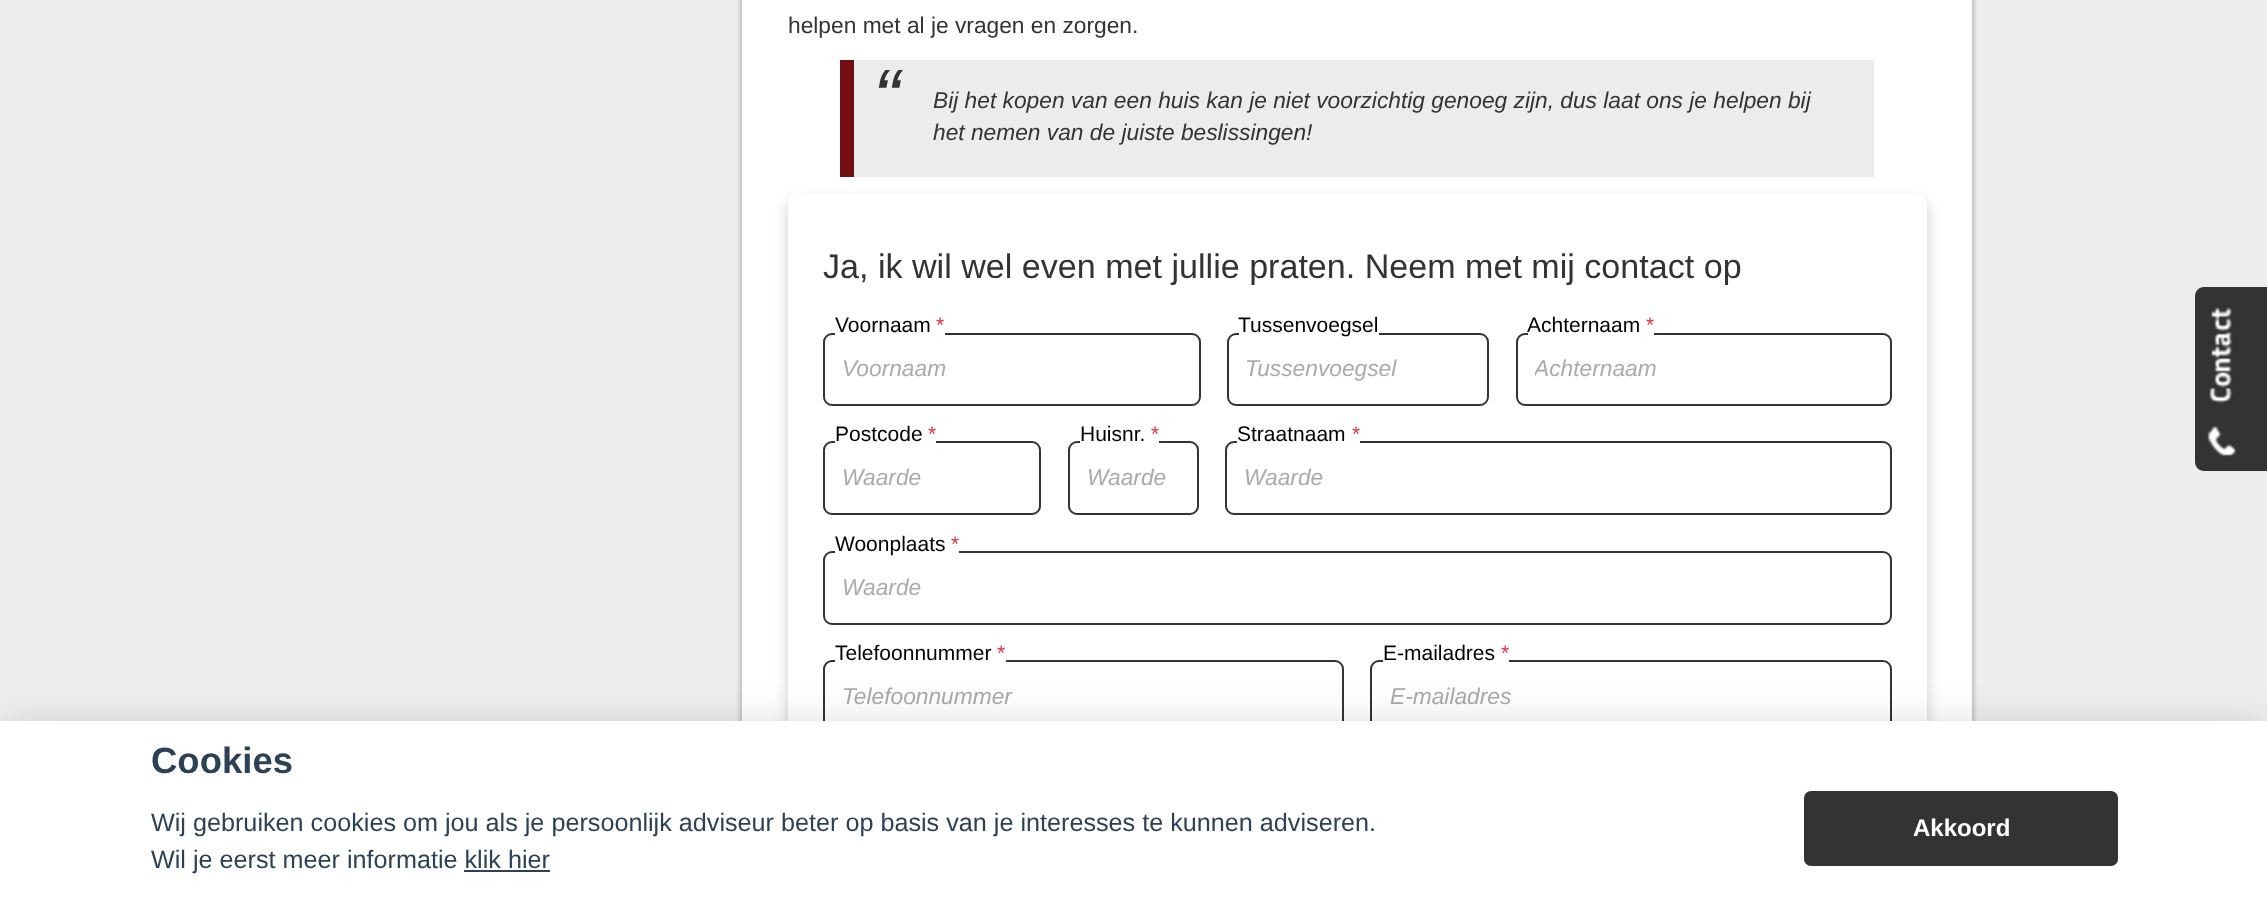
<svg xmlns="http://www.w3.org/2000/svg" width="2267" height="918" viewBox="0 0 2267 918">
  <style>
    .t1 { font: 22.75px Liberation Sans; fill: #333; }
    .t2 { font: italic 80px Liberation Sans; fill: #333; }
    .t3 { font: italic 22.75px Liberation Sans; fill: #333; }
    .t4 { font: 34.1px Liberation Sans; fill: #333; }
    .t5 { font: 21px Liberation Sans; fill: #000; }
    .t6 { font: 21px Liberation Sans; fill: #dc3545; }
    .t7 { font: italic 22.75px Liberation Sans; fill: #aaa; }
    .t8 { font: bold 36.5px Liberation Sans; fill: #2d4156; }
    .t9 { font: 25.2px Liberation Sans; fill: #2d4156; }
    .t10 { font: bold 24px Liberation Sans; fill: #fff; }
  </style>
  <defs>
    <clipPath id="clip1"><rect x="1535" y="355" width="338" height="27"/></clipPath>
  </defs>
  <rect width="100%" height="100%" fill="#eee"/>
  <rect x="740" y="-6" width="1234" height="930" fill="#0000003b" filter="blur(2px)"/>
  <rect x="742" y="0" width="1230" height="721" fill="#fff"/>
  <rect x="741" y="-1" width="1232" height="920" fill="none" stroke="#ccc" stroke-width="2"/>
  <text x="788" y="33" class="t1">helpen met al je vragen en zorgen.</text>
  <rect x="854" y="60" width="1020" height="117" fill="#ececec"/>
  <rect x="840" y="60" width="14" height="117" fill="#720e13"/>
  <text x="873" y="125" class="t2">“</text>
  <text x="933" y="108" class="t3">Bij het kopen van een huis kan je niet voorzichtig genoeg zijn, dus laat ons je helpen bij</text>
  <text x="933" y="140" class="t3">het nemen van de juiste beslissingen!</text>
  <rect x="788" y="201" width="1139" height="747" rx="9" fill="#00000033" filter="blur(7px)"/>
  <rect x="788" y="194" width="1139" height="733" rx="9" fill="#fff"/>
  <text x="823" y="278" class="t4">Ja, ik wil wel even met jullie praten. Neem met mij contact op</text>
  <rect x="824" y="334" width="376" height="71" rx="8" fill="none" stroke="#333" stroke-width="2"/>
  <rect x="835" y="333" width="110" height="2" fill="#fff"/>
  <text x="835" y="332" class="t5">Voornaam</text>
  <text x="936" y="332" class="t6">*</text>
  <text x="842" y="376" class="t7">Voornaam</text>
  <rect x="1228" y="334" width="260" height="71" rx="8" fill="none" stroke="#333" stroke-width="2"/>
  <rect x="1239" y="333" width="140" height="2" fill="#fff"/>
  <text x="1238" y="332" class="t5">Tussenvoegsel</text>
  <text x="1245" y="376" class="t7">Tussenvoegsel</text>
  <rect x="1517" y="334" width="374" height="71" rx="8" fill="none" stroke="#333" stroke-width="2"/>
  <rect x="1528" y="333" width="126" height="2" fill="#fff"/>
  <text x="1527" y="332" class="t5">Achternaam</text>
  <text x="1646" y="332" class="t6">*</text>
  <g clip-path="url(#clip1)">
    <text x="1534" y="376" class="t7">Achternaam</text>
  </g>
  <rect x="824" y="442" width="216" height="72" rx="8" fill="none" stroke="#333" stroke-width="2"/>
  <rect x="835" y="441" width="101" height="2" fill="#fff"/>
  <text x="835" y="441" class="t5">Postcode</text>
  <text x="928" y="441" class="t6">*</text>
  <text x="842" y="485" class="t7">Waarde</text>
  <rect x="1069" y="442" width="129" height="72" rx="8" fill="none" stroke="#333" stroke-width="2"/>
  <rect x="1080" y="441" width="79" height="2" fill="#fff"/>
  <text x="1080" y="441" class="t5">Huisnr.</text>
  <text x="1151" y="441" class="t6">*</text>
  <text x="1087" y="485" class="t7">Waarde</text>
  <rect x="1226" y="442" width="665" height="72" rx="8" fill="none" stroke="#333" stroke-width="2"/>
  <rect x="1237" y="441" width="123" height="2" fill="#fff"/>
  <text x="1237" y="441" class="t5">Straatnaam</text>
  <text x="1352" y="441" class="t6">*</text>
  <text x="1244" y="485" class="t7">Waarde</text>
  <rect x="824" y="552" width="1067" height="72" rx="8" fill="none" stroke="#333" stroke-width="2"/>
  <rect x="835" y="551" width="124" height="2" fill="#fff"/>
  <text x="835" y="551" class="t5">Woonplaats</text>
  <text x="951" y="551" class="t6">*</text>
  <text x="842" y="595" class="t7">Waarde</text>
  <rect x="824" y="661" width="519" height="71" rx="8" fill="none" stroke="#333" stroke-width="2"/>
  <rect x="835" y="660" width="171" height="2" fill="#fff"/>
  <text x="835" y="660" class="t5">Telefoonnummer</text>
  <text x="997" y="660" class="t6">*</text>
  <text x="842" y="704" class="t7">Telefoonnummer</text>
  <rect x="1371" y="661" width="520" height="71" rx="8" fill="none" stroke="#333" stroke-width="2"/>
  <rect x="1383" y="660" width="126" height="2" fill="#fff"/>
  <text x="1383" y="660" class="t5">E-mailadres</text>
  <text x="1501" y="660" class="t6">*</text>
  <text x="1390" y="704" class="t7">E-mailadres</text>
  <path d="M2204 287H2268V471H2204C2199 471 2195 467 2195 462V296C2195 291 2199 287 2204 287Z" fill="#333"/>
  <image x="2207" y="307" width="29" height="150" href="images/1.png"/>
  <rect x="0" y="739" width="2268" height="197" fill="#02020347" filter="blur(26px)"/>
  <rect x="0" y="721" width="2267" height="197" fill="#fff"/>
  <text x="151" y="773" class="t8">Cookies</text>
  <text x="151" y="831" class="t9">Wij gebruiken cookies om jou als je persoonlijk adviseur beter op basis van je interesses te kunnen adviseren.</text>
  <text x="151" y="868" class="t9">Wil je eerst meer informatie klik hier</text>
  <rect x="464" y="870" width="86" height="2" fill="#2d4156"/>
  <rect x="1804" y="791" width="314" height="75" rx="7" fill="#333"/>
  <text x="1913" y="836" class="t10">Akkoord</text>
</svg>
